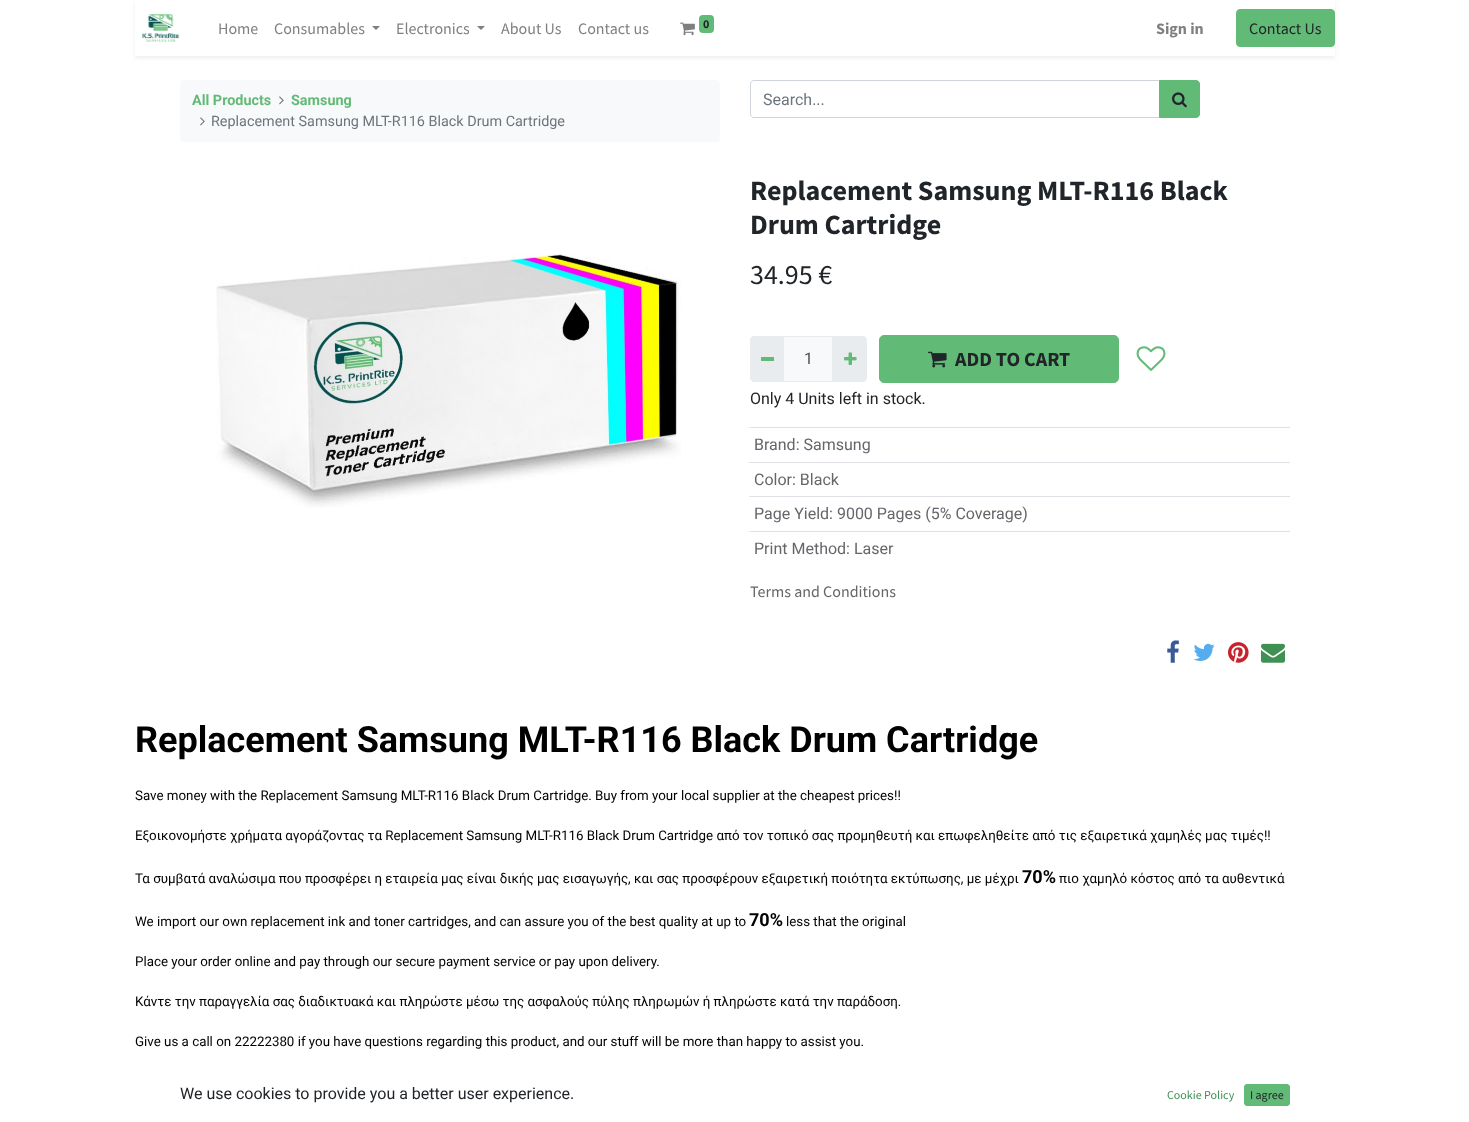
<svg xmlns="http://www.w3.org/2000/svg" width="1469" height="1122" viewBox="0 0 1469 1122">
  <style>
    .t1 { font: 16px Source Sans Pro; fill: #808080; }
    .t2 { font: bold 12px Source Sans Pro; fill: #212529; }
    .t3 { font: bold 16px Source Sans Pro; fill: #808080; }
    .t4 { font: 16px Source Sans Pro; fill: #212529; }
    .t5 { font: bold 14.4px Roboto; fill: #62ba77; }
    .t6 { font: 14.4px Roboto; fill: #6c757d; }
    .t7 { font: 16px Roboto; fill: #6c757d; }
    .t8 { font: bold 28px Source Sans Pro; fill: #212529; }
    .t9 { font: 28px Source Sans Pro; fill: #212529; }
    .t10 { font: 16px Roboto; fill: #495057; }
    .t11 { font: bold 20px Source Sans Pro; fill: #212529; }
    .t12 { font: 16px Roboto; fill: #212529; }
    .t13 { font: 16px Roboto; fill: #646669; }
    .t14 { font: 16px Source Sans Pro; fill: #646669; }
    .t15 { font: bold 36px Roboto; fill: #000; }
    .t16 { font: 13.33px Roboto; fill: #000; }
    .t17 { font: bold 18px Roboto; fill: #000; }
    .t18 { font: 12px Source Sans Pro; fill: #3f9053; }
    .t19 { font: 12px Source Sans Pro; fill: #212529; }
  </style>
  <defs>
    <clipPath id="clip1"><path d="M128 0H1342V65H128ZM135 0H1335V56H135Z" clip-rule="evenodd"/></clipPath>
  </defs>
  <rect width="100%" height="100%" fill="#fff"/>
  <g clip-path="url(#clip1)">
    <rect x="135" y="2" width="1200" height="56" fill="#00000012" filter="blur(2px)"/>
  </g>
  <image x="141" y="14" width="39" height="28" href="images/1.png"/>
  <text x="218" y="34" class="t1">Home</text>
  <text x="274" y="34" class="t1">Consumables</text>
  <path d="M372 26H380L376 30Z" fill="#808080"/>
  <text x="396" y="34" class="t1">Electronics</text>
  <path d="M477 26H485L481 30Z" fill="#808080"/>
  <text x="501" y="34" class="t1">About Us</text>
  <text x="578" y="34" class="t1">Contact us</text>
  <image x="680" y="22" width="15" height="14" href="images/2.png"/>
  <rect x="699" y="15" width="15" height="18" rx="4" fill="#62ba77"/>
  <text x="703" y="28" class="t2">0</text>
  <text x="1156" y="34" class="t3">Sign in</text>
  <rect x="1236.5" y="9.5" width="98" height="37" rx="3.5" fill="#62ba77" stroke="#62ba77"/>
  <text x="1249" y="34" class="t4">Contact Us</text>
  <rect x="180" y="80" width="540" height="62" rx="4" fill="#f8f9fa"/>
  <text x="192" y="105" class="t5">All Products</text>
  <image x="279" y="96" width="5" height="9" href="images/3.png"/>
  <text x="291" y="105" class="t5">Samsung</text>
  <image x="200" y="117" width="5" height="9" href="images/3.png"/>
  <text x="211" y="126" class="t6">Replacement Samsung MLT-R116 Black Drum Cartridge</text>
  <path d="M754 80.5H1159.5V117.5H754C752 117.5 750.5 116 750.5 114V84C750.5 82 752 80.5 754 80.5Z" fill="none" stroke="#ced4da"/>
  <text x="763" y="105" class="t7">Search...</text>
  <path d="M1159.5 80.5H1196C1198 80.5 1199.5 82 1199.5 84V114C1199.5 116 1198 117.5 1196 117.5H1159.5Z" fill="#62ba77" stroke="#62ba77"/>
  <image x="1172" y="92" width="15" height="16" href="images/4.png"/>
  <image x="216" y="254" width="465" height="254" href="images/5.png"/>
  <text x="750" y="200" class="t8">Replacement Samsung MLT-R116 Black</text>
  <text x="750" y="234" class="t8">Drum Cartridge</text>
  <text x="750" y="284" class="t9">34.95 €</text>
  <rect x="783.5" y="336.5" width="49" height="45" fill="#f8f9fa" stroke="#e9ecef"/>
  <path d="M754 336H784V382H754C752 382 750 380 750 378V340C750 338 752 336 754 336Z" fill="#e9ecef"/>
  <rect x="761" y="357" width="13" height="4" fill="#62ba77"/>
  <text x="804" y="364" class="t10">1</text>
  <path d="M832 336H863C865 336 867 338 867 340V378C867 380 865 382 863 382H832Z" fill="#e9ecef"/>
  <image x="844" y="352" width="13" height="13" href="images/6.png"/>
  <rect x="879.5" y="335.5" width="239" height="47" rx="4.5" fill="#62ba77" stroke="#62ba77"/>
  <image x="928" y="351" width="19" height="17" href="images/7.png"/>
  <text x="955" y="366" class="t11">ADD TO CART</text>
  <image x="1136" y="346" width="30" height="25" href="images/8.png"/>
  <text x="750" y="404" class="t12">Only 4 Units left in stock.</text>
  <rect x="749" y="427" width="541" height="1" fill="#dee2e6"/>
  <text x="754" y="450" class="t13">Brand: Samsung</text>
  <rect x="749" y="462" width="541" height="1" fill="#dee2e6"/>
  <text x="754" y="485" class="t13">Color: Black</text>
  <rect x="749" y="496" width="541" height="1" fill="#dee2e6"/>
  <text x="754" y="519" class="t13">Page Yield: 9000 Pages (5% Coverage)</text>
  <rect x="749" y="531" width="541" height="1" fill="#dee2e6"/>
  <text x="754" y="554" class="t13">Print Method: Laser</text>
  <text x="750" y="597" class="t14">Terms and Conditions</text>
  <image x="1167" y="640" width="12" height="23" href="images/9.png"/>
  <image x="1193" y="643" width="22" height="18" href="images/10.png"/>
  <image x="1228" y="642" width="21" height="21" href="images/11.png"/>
  <image x="1261" y="643" width="24" height="20" href="images/12.png"/>
  <text x="135" y="752" class="t15">Replacement Samsung MLT-R116 Black Drum Cartridge</text>
  <text x="135" y="800" class="t16">Save money with the Replacement Samsung MLT-R116 Black Drum Cartridge. Buy from your local supplier at the cheapest prices!!</text>
  <text x="135" y="840" class="t16">Εξοικονομήστε χρήματα αγοράζοντας τα Replacement Samsung MLT-R116 Black Drum Cartridge από τον τοπικό σας προμηθευτή και επωφεληθείτε από τις εξαιρετικά χαμηλές μας τιμές!!</text>
  <text x="135" y="883" class="t16">Τα συμβατά αναλώσιμα που προσφέρει η εταιρεία μας είναι δικής μας εισαγωγής, και σας προσφέρουν εξαιρετική ποιότητα εκτύπωσης, με μέχρι</text>
  <text x="1022" y="883" class="t17">70%</text>
  <text x="1059" y="883" class="t16">πιο χαμηλό κόστος από τα αυθεντικά</text>
  <text x="135" y="926" class="t16">We import our own replacement ink and toner cartridges, and can assure you of the best quality at up to</text>
  <text x="749" y="926" class="t17">70%</text>
  <text x="786" y="926" class="t16">less that the original</text>
  <text x="135" y="966" class="t16">Place your order online and pay through our secure payment service or pay upon delivery.</text>
  <text x="135" y="1006" class="t16">Κάντε την παραγγελία σας διαδικτυακά και πληρώστε μέσω της ασφαλούς πύλης πληρωμών ή πληρώστε κατά την παράδοση.</text>
  <text x="135" y="1046" class="t16">Give us a call on 22222380 if you have questions regarding this product, and our stuff will be more than happy to assist you.</text>
  <text x="180" y="1099" class="t12">We use cookies to provide you a better user experience.</text>
  <text x="1167" y="1099" class="t18">Cookie Policy</text>
  <rect x="1244.5" y="1084.5" width="45" height="21" rx="2.5" fill="#62ba77" stroke="#62ba77"/>
  <text x="1250" y="1099" class="t19">I agree</text>
</svg>
